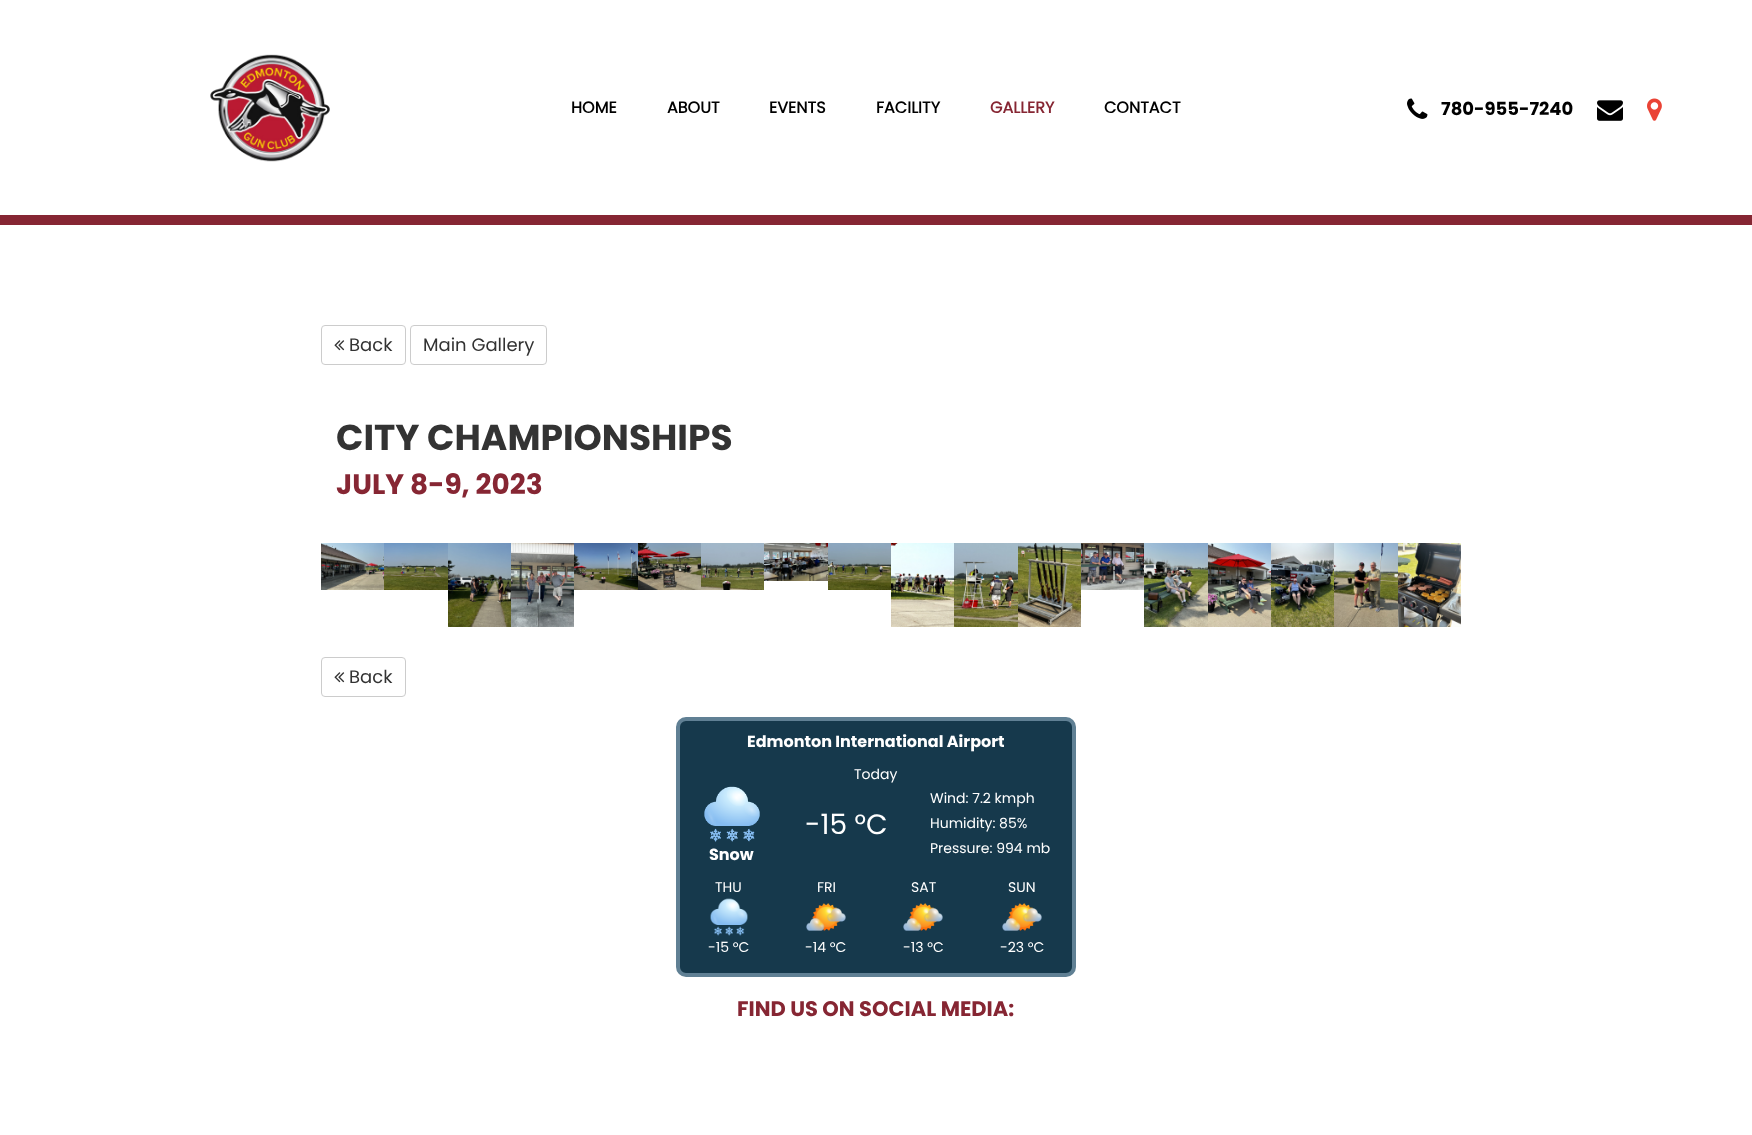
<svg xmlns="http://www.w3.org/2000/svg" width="1752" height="1135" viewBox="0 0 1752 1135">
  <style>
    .t1 { font: bold 16px 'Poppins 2'; fill: #000; }
    .t2 { font: bold 16px 'Poppins 2'; fill: #862633; }
    .t3 { font: bold 18px Poppins; fill: #000; }
    .t4 { font: 18px Poppins; fill: #333; }
    .t5 { font: bold 36px Poppins; fill: #333; }
    .t6 { font: bold 28px Poppins; fill: #862633; }
    .t7 { font: bold 16px Poppins; fill: #fff; }
    .t8 { font: 14px Poppins; fill: #fff; }
    .t9 { font: 28px Poppins; fill: #fff; }
    .t10 { font: bold 21px Poppins; fill: #862633; }
  </style>
  <rect width="100%" height="100%" fill="#fff"/>
  <rect x="0" y="215" width="1752" height="10" fill="#862633"/>
  <image x="210" y="54" width="120" height="108" href="images/1.png"/>
  <text x="571" y="113" class="t1">HOME</text>
  <text x="667" y="113" class="t1">ABOUT</text>
  <text x="769" y="113" class="t1">EVENTS</text>
  <text x="876" y="113" class="t1">FACILITY</text>
  <text x="990" y="113" class="t2">GALLERY</text>
  <text x="1104" y="113" class="t1">CONTACT</text>
  <image x="1407" y="98" width="21" height="21" href="images/2.png"/>
  <text x="1441" y="115" class="t3">780-955-7240</text>
  <image x="1597" y="100" width="26" height="21" href="images/3.png"/>
  <image x="1647" y="98" width="15" height="23" href="images/4.png"/>
  <rect x="321.5" y="325.5" width="84" height="39" rx="3.5" fill="none" stroke="#ccc"/>
  <image x="334" y="340" width="11" height="11" href="images/5.png"/>
  <text x="349" y="351" class="t4">Back</text>
  <rect x="410.5" y="325.5" width="136" height="39" rx="3.5" fill="none" stroke="#ccc"/>
  <text x="423" y="351" class="t4">Main Gallery</text>
  <text x="336" y="450" class="t5">CITY CHAMPIONSHIPS</text>
  <text x="336" y="494" class="t6">JULY 8-9, 2023</text>
  <image x="321" y="543" width="63" height="47" href="images/6.png"/>
  <image x="384" y="543" width="64" height="47" href="images/7.png"/>
  <image x="448" y="543" width="63" height="84" href="images/8.png"/>
  <image x="511" y="543" width="63" height="84" href="images/9.png"/>
  <image x="574" y="543" width="64" height="47" href="images/10.png"/>
  <image x="638" y="543" width="63" height="47" href="images/11.png"/>
  <image x="701" y="543" width="63" height="47" href="images/12.png"/>
  <image x="764" y="543" width="64" height="38" href="images/13.png"/>
  <image x="828" y="543" width="63" height="47" href="images/14.png"/>
  <image x="891" y="543" width="63" height="84" href="images/15.png"/>
  <image x="954" y="543" width="64" height="84" href="images/16.png"/>
  <image x="1018" y="543" width="63" height="84" href="images/17.png"/>
  <image x="1081" y="543" width="63" height="47" href="images/18.png"/>
  <image x="1144" y="543" width="64" height="84" href="images/19.png"/>
  <image x="1208" y="543" width="63" height="84" href="images/20.png"/>
  <image x="1271" y="543" width="63" height="84" href="images/21.png"/>
  <image x="1334" y="543" width="64" height="84" href="images/22.png"/>
  <image x="1398" y="543" width="63" height="84" href="images/23.png"/>
  <rect x="321.5" y="657.5" width="84" height="39" rx="3.5" fill="none" stroke="#ccc"/>
  <image x="334" y="672" width="11" height="11" href="images/5.png"/>
  <text x="349" y="683" class="t4">Back</text>
  <rect x="678" y="719" width="396" height="256" rx="8" fill="#16394c" stroke="#608094" stroke-width="4"/>
  <text x="747" y="747" class="t7">Edmonton International Airport</text>
  <text x="854" y="779" class="t8">Today</text>
  <text x="805" y="834" class="t9">-15 °C</text>
  <text x="930" y="803" class="t8">Wind: 7.2 kmph</text>
  <text x="930" y="828" class="t8">Humidity: 85%</text>
  <text x="930" y="853" class="t8">Pressure: 994 mb</text>
  <image x="704" y="786" width="56" height="56" href="images/24.png"/>
  <text x="709" y="860" class="t7">Snow</text>
  <text x="715" y="892" class="t8">THU</text>
  <image x="710" y="898" width="38" height="38" href="images/25.png"/>
  <text x="708" y="952" class="t8">-15 °C</text>
  <text x="817" y="892" class="t8">FRI</text>
  <image x="806" y="903" width="40" height="28" href="images/26.png"/>
  <text x="805" y="952" class="t8">-14 °C</text>
  <text x="911" y="892" class="t8">SAT</text>
  <image x="903" y="903" width="40" height="28" href="images/26.png"/>
  <text x="903" y="952" class="t8">-13 °C</text>
  <text x="1008" y="892" class="t8">SUN</text>
  <image x="1002" y="903" width="40" height="28" href="images/26.png"/>
  <text x="1000" y="952" class="t8">-23 °C</text>
  <text x="737" y="1016" class="t10">FIND US ON SOCIAL MEDIA:</text>
</svg>
